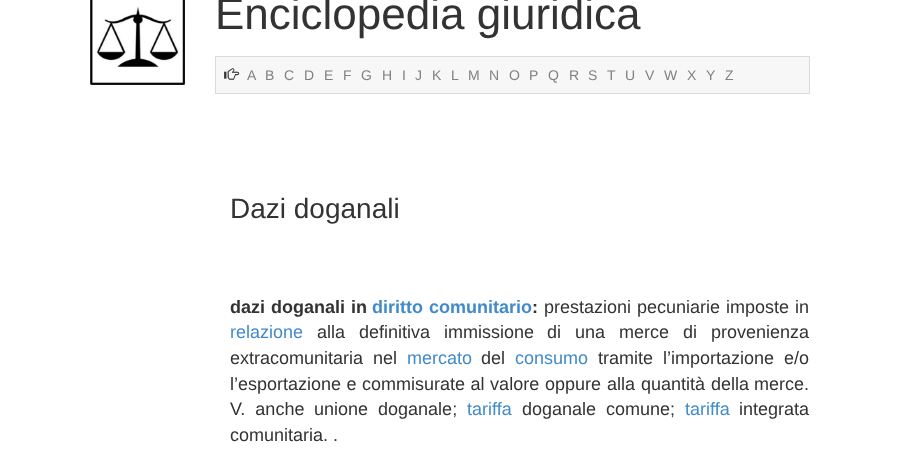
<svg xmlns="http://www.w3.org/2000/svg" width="899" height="473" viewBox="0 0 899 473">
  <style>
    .t1 { font: 44px Liberation Sans; fill: #333; }
    .t2 { font: 14px Liberation Sans; fill: #808080; }
    .t3 { font: 28px Liberation Sans; fill: #333; }
    .t4 { font: bold 18px Liberation Sans; fill: #333; }
    .t5 { font: bold 18px Liberation Sans; fill: #428bca; }
    .t6 { font: 18px Liberation Sans; fill: #333; }
    .t7 { font: 18px Liberation Sans; fill: #428bca; }
  </style>
  <rect width="100%" height="100%" fill="#fff"/>
  <image x="90" y="0" width="95" height="85" href="images/1.png"/>
  <text x="215" y="29" class="t1">Enciclopedia giuridica</text>
  <rect x="215.5" y="56.5" width="594" height="37" fill="#f7f7f7" stroke="#dadada"/>
  <image x="224" y="68" width="16" height="12" href="images/2.png"/>
  <text x="247" y="80" class="t2">A</text>
  <text x="265" y="80" class="t2">B</text>
  <text x="284" y="80" class="t2">C</text>
  <text x="304" y="80" class="t2">D</text>
  <text x="324" y="80" class="t2">E</text>
  <text x="343" y="80" class="t2">F</text>
  <text x="361" y="80" class="t2">G</text>
  <text x="382" y="80" class="t2">H</text>
  <text x="402" y="80" class="t2">I</text>
  <text x="415" y="80" class="t2">J</text>
  <text x="432" y="80" class="t2">K</text>
  <text x="451" y="80" class="t2">L</text>
  <text x="468" y="80" class="t2">M</text>
  <text x="489" y="80" class="t2">N</text>
  <text x="509" y="80" class="t2">O</text>
  <text x="529" y="80" class="t2">P</text>
  <text x="548" y="80" class="t2">Q</text>
  <text x="569" y="80" class="t2">R</text>
  <text x="588" y="80" class="t2">S</text>
  <text x="607" y="80" class="t2">T</text>
  <text x="625" y="80" class="t2">U</text>
  <text x="645" y="80" class="t2">V</text>
  <text x="664" y="80" class="t2">W</text>
  <text x="687" y="80" class="t2">X</text>
  <text x="706" y="80" class="t2">Y</text>
  <text x="725" y="80" class="t2">Z</text>
  <text x="230" y="218" class="t3">Dazi doganali</text>
  <text x="230" y="313" word-spacing="1" class="t4">dazi doganali in</text>
  <text x="372" y="313" word-spacing="1" class="t5">diritto comunitario</text>
  <text x="532" y="313" class="t4">:</text>
  <text x="544" y="313" word-spacing="1" class="t6">prestazioni pecuniarie imposte</text>
  <text x="795" y="313" class="t6">in</text>
  <text x="230" y="338" class="t7">relazione</text>
  <text x="317" y="338" word-spacing="9" class="t6">alla definitiva</text>
  <text x="444" y="338" class="t6">immissione</text>
  <text x="547" y="338" word-spacing="9" class="t6">di una</text>
  <text x="619" y="338" class="t6">merce</text>
  <text x="683" y="338" word-spacing="9" class="t6">di provenienza</text>
  <text x="230" y="364" word-spacing="5" class="t6">extracomunitaria nel</text>
  <text x="407" y="364" class="t7">mercato</text>
  <text x="481" y="364" class="t6">del</text>
  <text x="515" y="364" class="t7">consumo</text>
  <text x="598" y="364" word-spacing="5" class="t6">tramite l’importazione e/o</text>
  <text x="230" y="390" word-spacing="0.5" class="t6">l’esportazione e commisurate al valore</text>
  <text x="545" y="390" word-spacing="1" class="t6">oppure alla</text>
  <text x="641" y="390" class="t6">quantità</text>
  <text x="711" y="390" class="t6">della</text>
  <text x="754" y="390" class="t6">merce.</text>
  <text x="230" y="415" word-spacing="5" class="t6">V. anche</text>
  <text x="314" y="415" word-spacing="5" class="t6">unione doganale;</text>
  <text x="467" y="415" class="t7">tariffa</text>
  <text x="522" y="415" class="t6">doganale</text>
  <text x="606" y="415" class="t6">comune;</text>
  <text x="685" y="415" class="t7">tariffa</text>
  <text x="739" y="415" class="t6">integrata</text>
  <text x="230" y="441" class="t6">comunitaria. .</text>
</svg>
